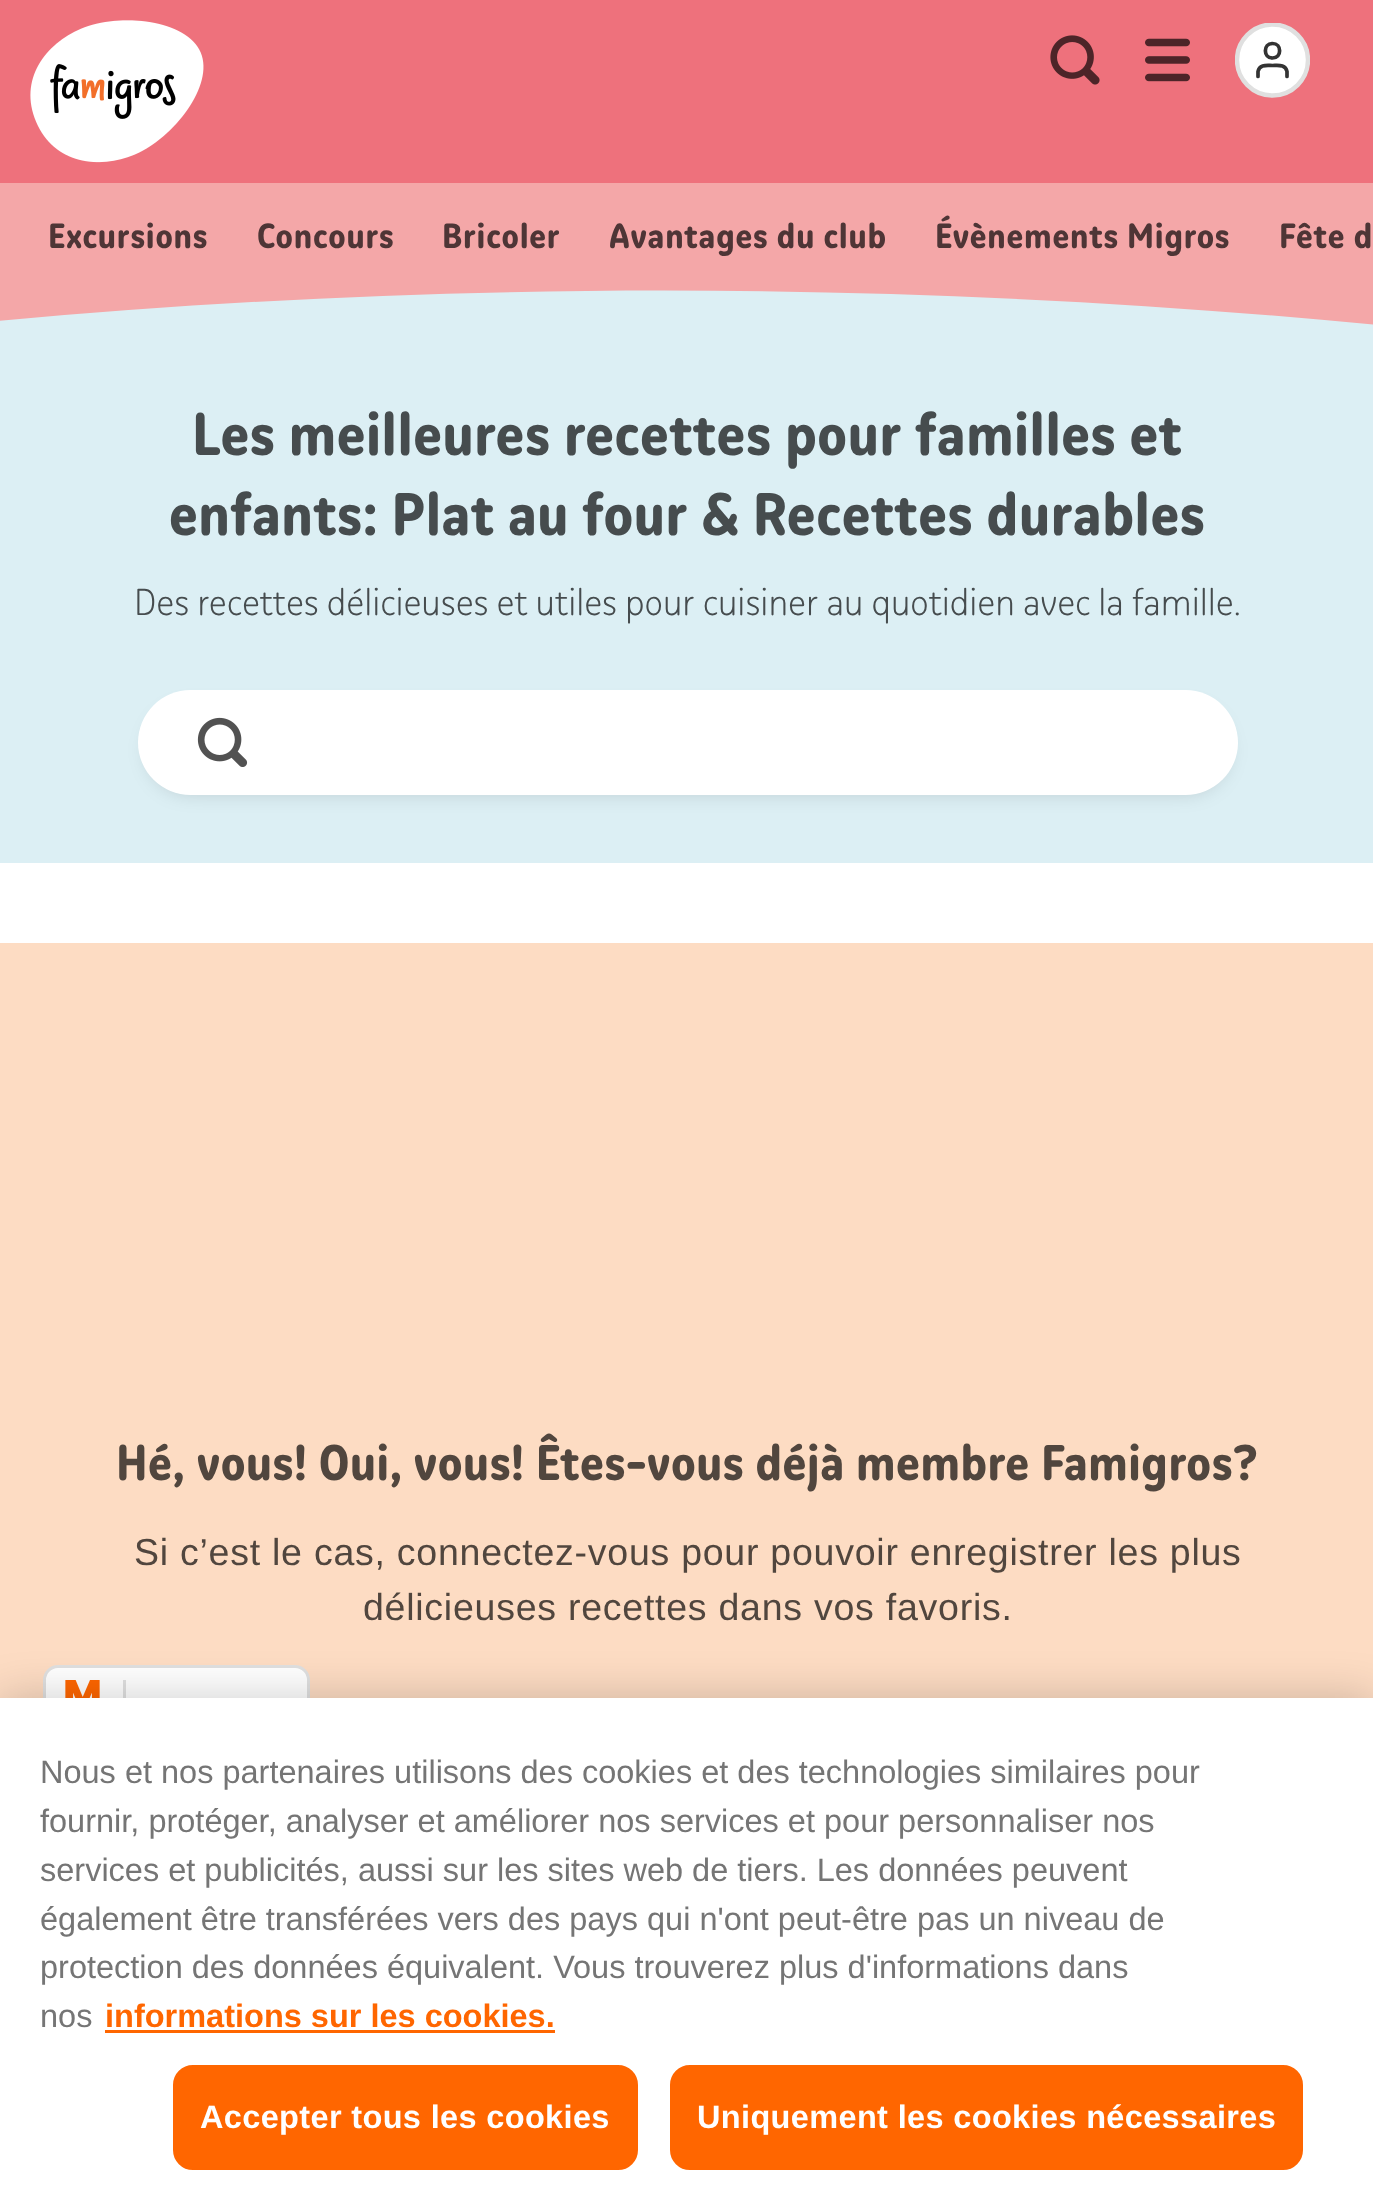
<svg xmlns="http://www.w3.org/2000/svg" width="1373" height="2204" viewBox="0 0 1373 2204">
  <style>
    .t1 { font: bold 35px 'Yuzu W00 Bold'; letter-spacing: 0.75px; fill: #4e3536; }
    .t2 { font: bold 60px 'Yuzu W00 Bold'; letter-spacing: 0.5px; fill: #464c4e; }
    .t3 { font: 300 37.5px 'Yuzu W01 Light'; fill: #464c4e; }
    .t4 { font: bold 50px 'Yuzu W00 Bold'; letter-spacing: 0.5px; fill: #51463e; }
    .t5 { font: 37.5px Liberation Sans; letter-spacing: 0.75px; fill: #51463e; }
    .t6 { font: 32.5px Liberation Sans; fill: #757575; }
    .t7 { font: bold 32.5px Liberation Sans; fill: #f60; }
    .t8 { font: bold 32.5px Liberation Sans; letter-spacing: 0.35px; fill: #fff; }
  </style>
  <defs>
    <clipPath id="clip1"><rect x="1235" y="23" width="75" height="75"/></clipPath>
    <clipPath id="clip2"><rect x="0" y="253" width="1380" height="75"/></clipPath>
  </defs>
  <rect width="100%" height="100%" fill="#fff"/>
  <rect x="0" y="0" width="1373" height="183" fill="#ee717c"/>
  <image x="30" y="20" width="174" height="143" href="images/1.png"/>
  <image x="1050" y="35" width="50" height="50" href="images/2.png"/>
  <image x="1145" y="38" width="45" height="44" href="images/3.png"/>
  <circle cx="1272.5" cy="60" r="35.5" fill="#fff"/>
  <g clip-path="url(#clip1)">
    <circle cx="1272.5" cy="60" r="35.5" fill="none" stroke="#e0e0e0" stroke-width="4.4"/>
  </g>
  <path d="M1287 76.5V71.5C1285.5 64 1278 65.5 1272.5 65.5C1267 65.5 1259.5 64 1258 71.5V76.5M1272.5 58C1282 58 1282 43.5 1272.5 43.5C1263 43.5 1263 58 1272.5 58Z" fill="none" stroke="#333" stroke-width="3.7" stroke-linecap="round" stroke-linejoin="round"/>
  <rect x="0" y="183" width="1373" height="70" fill="#f4a7a8"/>
  <rect x="0" y="290" width="1373" height="573" fill="#dceff4"/>
  <g clip-path="url(#clip2)">
    <path d="M-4 246L342 247L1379 246V325C957 284 485 276-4 321Z" fill="#f4a7a8"/>
  </g>
  <text x="48" y="248" class="t1">Excursions</text>
  <text x="257" y="248" class="t1">Concours</text>
  <text x="442" y="248" class="t1">Bricoler</text>
  <text x="609" y="248" class="t1">Avantages du club</text>
  <text x="935" y="248" class="t1">Évènements Migros</text>
  <text x="1279" y="248" class="t1">Fête d</text>
  <text x="192" y="455" class="t2">Les meilleures recettes pour familles et</text>
  <text x="169" y="535" class="t2">enfants: Plat au four &amp; Recettes durables</text>
  <text x="134" y="615" class="t3">Des recettes délicieuses et utiles pour cuisiner au quotidien avec la famille.</text>
  <rect x="148" y="708" width="1080" height="85" rx="42.5" fill="#00000026" filter="blur(10px)"/>
  <rect x="138" y="690" width="1100" height="105" rx="52.5" fill="#fff"/>
  <image x="197" y="717" width="51" height="50" href="images/4.png"/>
  <rect x="0" y="943" width="1373" height="755" fill="#fddcc3"/>
  <text x="116" y="1480" class="t4">Hé, vous! Oui, vous! Êtes-vous déjà membre Famigros?</text>
  <text x="134" y="1565" class="t5">Si c’est le cas, connectez-vous pour pouvoir enregistrer les plus</text>
  <text x="363" y="1620" class="t5">délicieuses recettes dans vos favoris.</text>
  <rect x="44.5" y="1666.5" width="264" height="57" rx="13.5" fill="#fff" stroke="#e0e0e0" stroke-width="3"/>
  <image x="65" y="1680" width="35" height="18" href="images/5.png"/>
  <rect x="123" y="1680" width="3" height="18" fill="#e0e0e0"/>
  <rect x="0" y="1698" width="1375" height="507" fill="#00000033" filter="blur(22.5px)"/>
  <rect x="0" y="1698" width="1373" height="506" fill="#fff"/>
  <text x="40" y="1783" class="t6">Nous et nos partenaires utilisons des cookies et des technologies similaires pour</text>
  <text x="40" y="1832" class="t6">fournir, protéger, analyser et améliorer nos services et pour personnaliser nos</text>
  <text x="40" y="1881" class="t6">services et publicités, aussi sur les sites web de tiers. Les données peuvent</text>
  <text x="40" y="1930" class="t6">également être transférées vers des pays qui n'ont peut-être pas un niveau de</text>
  <text x="40" y="1978" class="t6">protection des données équivalent. Vous trouverez plus d'informations dans</text>
  <text x="40" y="2027" class="t6">nos</text>
  <text x="105" y="2027" class="t7">informations sur les cookies.</text>
  <rect x="105" y="2030" width="450" height="3" fill="#f60"/>
  <rect x="174.5" y="2066.5" width="462" height="102" rx="18.5" fill="#f60" stroke="#f60" stroke-width="3"/>
  <text x="200" y="2128" class="t8">Accepter tous les cookies</text>
  <rect x="671.5" y="2066.5" width="630" height="102" rx="18.5" fill="#f60" stroke="#f60" stroke-width="3"/>
  <text x="697" y="2128" class="t8">Uniquement les cookies nécessaires</text>
</svg>
